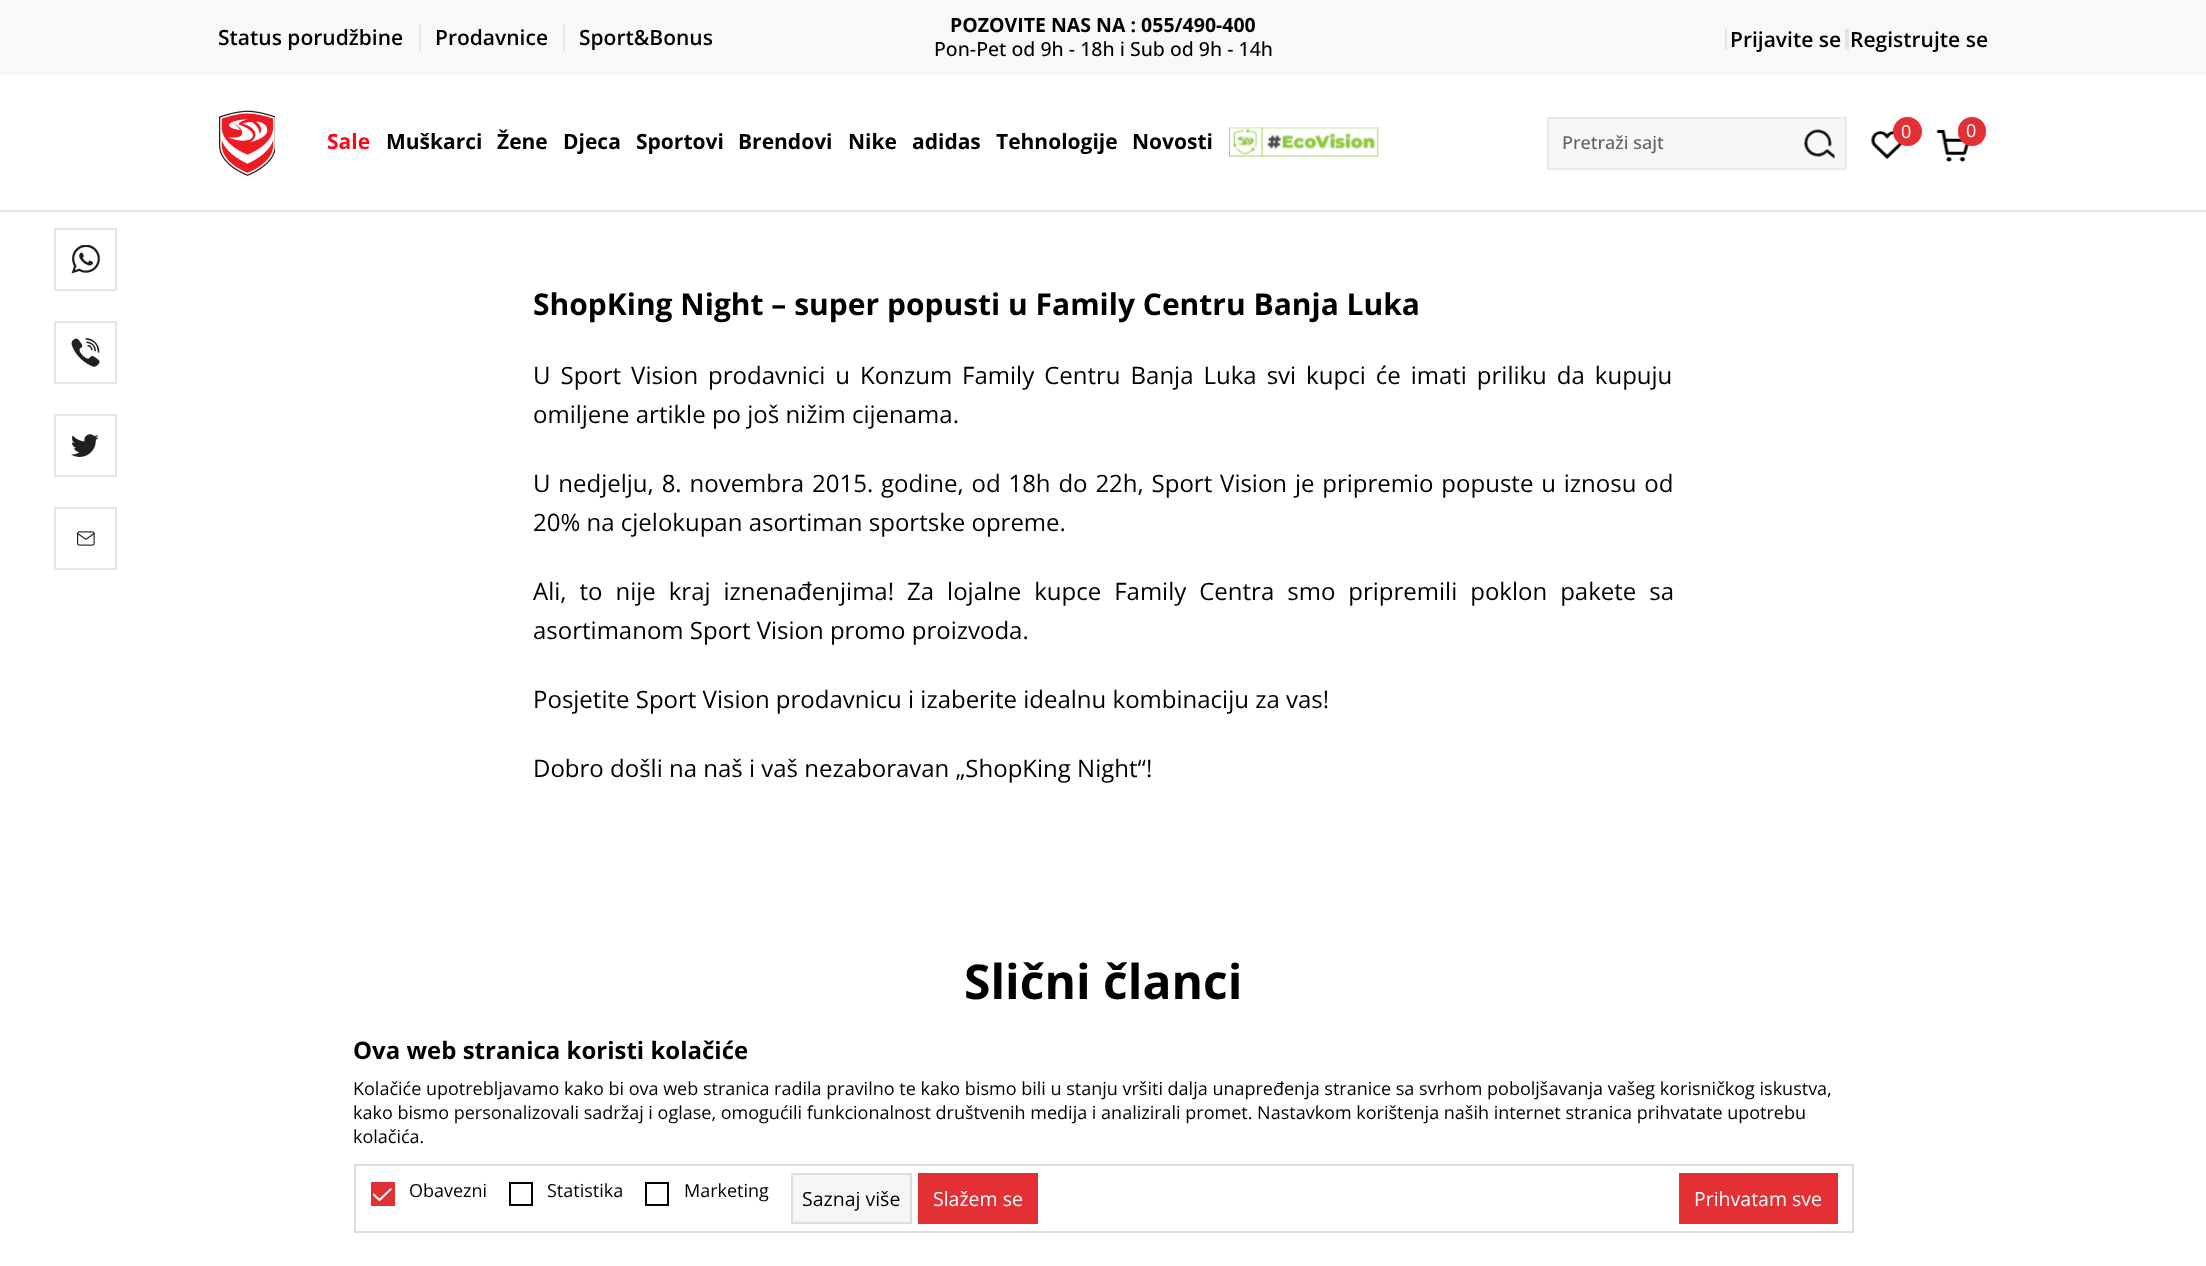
<svg xmlns="http://www.w3.org/2000/svg" width="2206" height="1266" viewBox="0 0 2206 1266">
  <style>*{font-kerning:none!important;font-variant-ligatures:none!important}</style>
  <style>
    .t1 { font: 600 21px Open Sans; fill: #000; }
    .t2 { font: bold 19.5px Open Sans; fill: #000; }
    .t3 { font: 500 19.5px Open Sans; fill: #000; }
    .t4 { font: bold 21px Open Sans; fill: #f70a16; }
    .t5 { font: bold 21px Open Sans; fill: #000; }
    .t6 { font: 18px Open Sans; fill: #fff; }
    .t7 { font: 500 18px Open Sans; fill: #636363; }
    .t8 { font: bold 30px Open Sans; fill: #000; }
    .t9 { font: 24px Open Sans; fill: #000; }
    .t10 { font: bold 48px Open Sans; fill: #000; }
    .t11 { font: bold 24px Open Sans; fill: #000; }
    .t12 { font: 18px Open Sans; fill: #000; }
    .t13 { font: 19.5px Open Sans; fill: #000; }
    .t14 { font: 19.5px Open Sans; fill: #fff; }
  </style>
  <rect width="100%" height="100%" fill="#fff"/>
  <rect x="0" y="210" width="2206" height="2" fill="#e5e5e5"/>
  <rect x="0" y="0" width="2206" height="75" fill="#f8f8f8"/>
  <rect x="419" y="24" width="2" height="27" fill="#e5e5e5"/>
  <text x="218" y="45" class="t1">Status porudžbine</text>
  <rect x="563" y="24" width="2" height="27" fill="#e5e5e5"/>
  <text x="435" y="45" class="t1">Prodavnice</text>
  <text x="579" y="45" class="t1">Sport&amp;Bonus</text>
  <text x="950" y="32" class="t2">POZOVITE NAS NA : 055/490-400</text>
  <text x="934" y="56" class="t3">Pon-Pet od 9h - 18h i Sub od 9h - 14h</text>
  <rect x="1725" y="29" width="2" height="21" fill="#e5e5e5"/>
  <text x="1730" y="47" class="t1">Prijavite se</text>
  <rect x="1845" y="29" width="4" height="21" fill="#e5e5e5"/>
  <text x="1850" y="47" class="t1">Registrujte se</text>
  <image x="219" y="110" width="56" height="66" href="images/1.png"/>
  <text x="327" y="149" class="t4">Sale</text>
  <text x="386" y="149" class="t5">Muškarci</text>
  <text x="497" y="149" class="t5">Žene</text>
  <text x="563" y="149" class="t5">Djeca</text>
  <text x="636" y="149" class="t5">Sportovi</text>
  <text x="738" y="149" class="t5">Brendovi</text>
  <text x="848" y="149" class="t5">Nike</text>
  <text x="912" y="149" class="t5">adidas</text>
  <text x="996" y="149" class="t5">Tehnologije</text>
  <text x="1132" y="149" class="t5">Novosti</text>
  <image x="1229" y="127" width="150" height="31" href="images/2.png"/>
  <image x="1871" y="131" width="31" height="28" href="images/3.png"/>
  <circle cx="1907.5" cy="131.5" r="14.5" fill="#e23034"/>
  <text x="1901" y="138" class="t6">0</text>
  <image x="1936" y="130" width="33" height="32" href="images/4.png"/>
  <rect x="1958" y="117" width="28" height="29" rx="14" fill="#e23034"/>
  <text x="1966" y="137" class="t6">0</text>
  <rect x="1548" y="118" width="298" height="51" fill="#f7f7f7" stroke="#e9e9e9" stroke-width="2"/>
  <text x="1562" y="149" class="t7">Pretraži sajt</text>
  <image x="1804" y="129" width="31" height="30" href="images/5.png"/>
  <rect x="55" y="229" width="61" height="61" fill="none" stroke="#e5e5e5" stroke-width="2"/>
  <image x="71" y="245" width="29" height="29" href="images/6.png"/>
  <rect x="55" y="322" width="61" height="61" fill="none" stroke="#e5e5e5" stroke-width="2"/>
  <image x="71" y="338" width="29" height="29" href="images/7.png"/>
  <rect x="55" y="415" width="61" height="61" fill="none" stroke="#e5e5e5" stroke-width="2"/>
  <image x="71" y="434" width="28" height="23" href="images/8.png"/>
  <rect x="55" y="508" width="61" height="61" fill="none" stroke="#e5e5e5" stroke-width="2"/>
  <image x="77" y="531" width="18" height="15" href="images/9.png"/>
  <text x="533" y="315" class="t8">ShopKing Night – super popusti u Family Centru Banja Luka</text>
  <text x="533" y="384" word-spacing="3.75" class="t9">U Sport Vision prodavnici u Konzum Family Centru Banja Luka svi kupci će imati priliku da kupuju</text>
  <text x="533" y="423" class="t9">omiljene artikle po još nižim cijenama.</text>
  <text x="533" y="492" word-spacing="1.6" class="t9">U nedjelju, 8. novembra 2015. godine, od 18h do 22h, Sport Vision je pripremio popuste u iznosu od</text>
  <text x="533" y="531" class="t9">20% na cjelokupan asortiman sportske opreme.</text>
  <text x="533" y="600" word-spacing="6.75" class="t9">Ali, to nije kraj iznenađenjima! Za lojalne kupce Family Centra smo pripremili poklon pakete sa</text>
  <text x="533" y="639" class="t9">asortimanom Sport Vision promo proizvoda.</text>
  <text x="533" y="708" class="t9">Posjetite Sport Vision prodavnicu i izaberite idealnu kombinaciju za vas!</text>
  <text x="533" y="777" class="t9">Dobro došli na naš i vaš nezaboravan „ShopKing Night“!</text>
  <text x="964" y="999" class="t10">Slični članci</text>
  <text x="353" y="1059" class="t11">Ova web stranica koristi kolačiće</text>
  <text x="353" y="1095" class="t12">Kolačiće upotrebljavamo kako bi ova web stranica radila pravilno te kako bismo bili u stanju vršiti dalja unapređenja stranice sa svrhom poboljšavanja vašeg korisničkog iskustva,</text>
  <text x="353" y="1119" class="t12">kako bismo personalizovali sadržaj i oglase, omogućili funkcionalnost društvenih medija i analizirali promet. Nastavkom korištenja naših internet stranica prihvatate upotrebu</text>
  <text x="353" y="1143" class="t12">kolačića.</text>
  <rect x="355" y="1165" width="1498" height="67" fill="none" stroke="#dedede" stroke-width="2"/>
  <rect x="373" y="1184" width="20" height="20" fill="#e23034"/>
  <image x="373" y="1188" width="19" height="13" href="images/10.png"/>
  <rect x="372" y="1183" width="22" height="22" fill="none" stroke="#e23034" stroke-width="2"/>
  <text x="409" y="1197" class="t12">Obavezni</text>
  <rect x="510" y="1183" width="22" height="22" fill="none" stroke="#000" stroke-width="2"/>
  <text x="547" y="1197" class="t12">Statistika</text>
  <rect x="646" y="1183" width="22" height="22" fill="none" stroke="#000" stroke-width="2"/>
  <text x="684" y="1197" class="t12">Marketing</text>
  <rect x="792" y="1174" width="119" height="49" fill="#f6f6f6" stroke="#dedede" stroke-width="2"/>
  <text x="802" y="1206" class="t13">Saznaj više</text>
  <rect x="918" y="1173" width="120" height="51" fill="#e23034"/>
  <text x="933" y="1206" class="t14">Slažem se</text>
  <rect x="1679" y="1173" width="159" height="51" fill="#e23034"/>
  <text x="1694" y="1206" class="t14">Prihvatam sve</text>
</svg>
